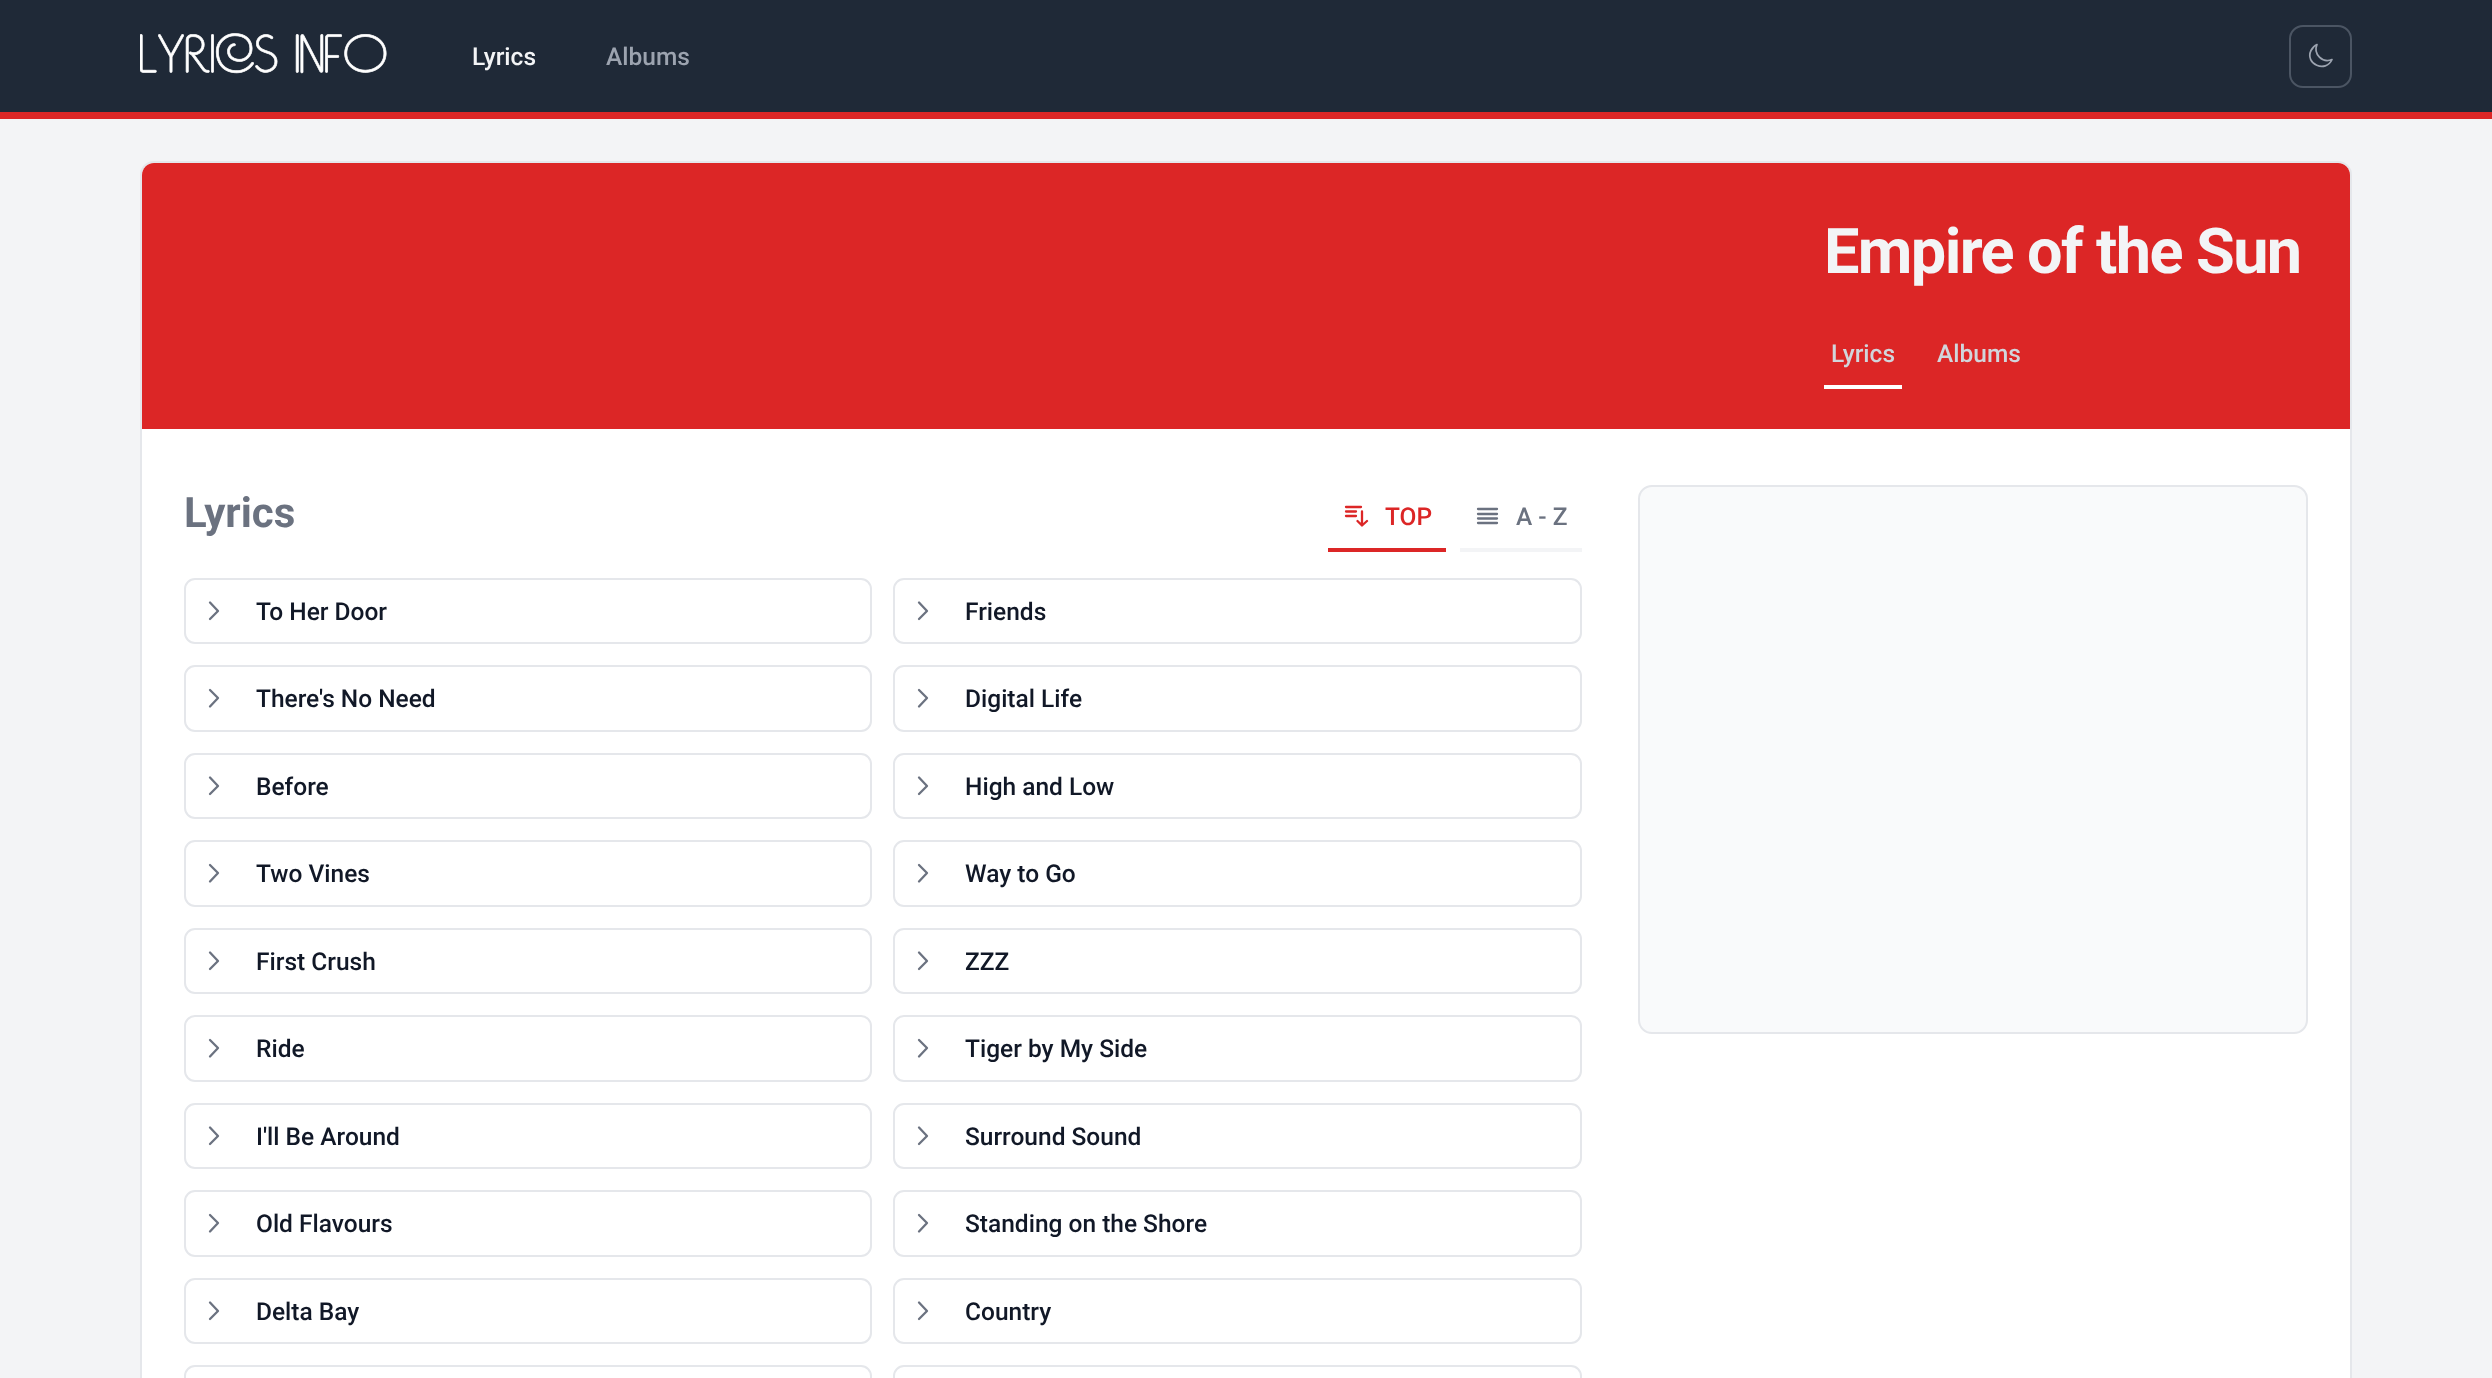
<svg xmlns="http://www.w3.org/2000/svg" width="2492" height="1378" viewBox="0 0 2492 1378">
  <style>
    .t1 { font: 500 24.5px Roboto; fill: #f3f4f6; }
    .t2 { font: 500 24.5px Roboto; fill: #9ca3af; }
    .t3 { font: bold 63px Roboto; letter-spacing: -1.6px; fill: #f3f4f6; }
    .t4 { font: 500 24.5px Roboto; fill: #d1d5db; }
    .t5 { font: bold 42px Roboto; fill: #6b7280; }
    .t6 { font: 500 24.5px Roboto; fill: #dc2626; }
    .t7 { font: 500 24.5px Roboto; fill: #6b7280; }
    .t8 { font: 500 24.5px Roboto; fill: #111827; }
  </style>
  <rect width="100%" height="100%" fill="#f3f4f6"/>
  <rect x="0" y="0" width="2492" height="112" fill="#1f2937"/>
  <rect x="0" y="112" width="2492" height="7" fill="#dc2626"/>
  <image x="140" y="33" width="247" height="41" href="images/1.png"/>
  <text x="472" y="65" class="t1">Lyrics</text>
  <text x="606" y="65" class="t2">Albums</text>
  <rect x="2290" y="26" width="61" height="61" rx="13" fill="none" stroke="#4b5563" stroke-width="2"/>
  <path d="M2332 59.5C2322.5 63.5 2313 54 2317 44.5C2314.5 45.5 2312.5 47.5 2311 50.5C2304.5 64 2326 73.5 2332 59.5Z" fill="none" stroke="#9ca3af" stroke-width="1.7" stroke-linecap="round" stroke-linejoin="round"/>
  <rect x="141" y="162" width="2210" height="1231" rx="13" fill="#fff" stroke="#e5e7eb" stroke-width="2"/>
  <path d="M154 163H2338C2344.5 163 2350 168.5 2350 175V429H142V175C142 168.5 147.5 163 154 163Z" fill="#dc2626"/>
  <text x="1824" y="273" class="t3">Empire of the Sun</text>
  <rect x="1824" y="385" width="78" height="4" fill="#fff"/>
  <text x="1831" y="362" class="t4">Lyrics</text>
  <text x="1937" y="362" class="t4">Albums</text>
  <text x="184" y="527" class="t5">Lyrics</text>
  <rect x="1328" y="548" width="118" height="4" fill="#dc2626"/>
  <path d="M1346 507H1361M1346 511.5H1356M1346 516H1356M1362 511.5V525.5M1362 525.5L1357.5 521M1362 525.5L1367 521" fill="none" stroke="#dc2626" stroke-width="2.3" stroke-linecap="round" stroke-linejoin="round"/>
  <text x="1385" y="525" class="t6">TOP</text>
  <rect x="1460" y="548" width="122" height="4" fill="#f3f4f6"/>
  <path d="M1478 509H1497M1478 514H1497M1478 518.5H1497M1478 523H1497" fill="none" stroke="#6b7280" stroke-width="2.3" stroke-linecap="round" stroke-linejoin="round"/>
  <text x="1516" y="525" class="t7">A - Z</text>
  <rect x="185" y="579" width="686" height="64" rx="10" fill="none" stroke="#e5e7eb" stroke-width="2"/>
  <path d="M210 602.5L218 611L210 619" fill="none" stroke="#6b7280" stroke-width="2.3" stroke-linecap="round" stroke-linejoin="round"/>
  <text x="256" y="620" class="t8">To Her Door</text>
  <rect x="894" y="579" width="687" height="64" rx="10" fill="none" stroke="#e5e7eb" stroke-width="2"/>
  <path d="M919 602.5L927 611L919 619" fill="none" stroke="#6b7280" stroke-width="2.3" stroke-linecap="round" stroke-linejoin="round"/>
  <text x="965" y="620" class="t8">Friends</text>
  <rect x="185" y="666" width="686" height="65" rx="10" fill="none" stroke="#e5e7eb" stroke-width="2"/>
  <path d="M210 690L218 698L210 706.5" fill="none" stroke="#6b7280" stroke-width="2.3" stroke-linecap="round" stroke-linejoin="round"/>
  <text x="256" y="707" class="t8">There's No Need</text>
  <rect x="894" y="666" width="687" height="65" rx="10" fill="none" stroke="#e5e7eb" stroke-width="2"/>
  <path d="M919 690L927 698L919 706.5" fill="none" stroke="#6b7280" stroke-width="2.3" stroke-linecap="round" stroke-linejoin="round"/>
  <text x="965" y="707" class="t8">Digital Life</text>
  <rect x="185" y="754" width="686" height="64" rx="10" fill="none" stroke="#e5e7eb" stroke-width="2"/>
  <path d="M210 777.5L218 786L210 794" fill="none" stroke="#6b7280" stroke-width="2.3" stroke-linecap="round" stroke-linejoin="round"/>
  <text x="256" y="795" class="t8">Before</text>
  <rect x="894" y="754" width="687" height="64" rx="10" fill="none" stroke="#e5e7eb" stroke-width="2"/>
  <path d="M919 777.5L927 786L919 794" fill="none" stroke="#6b7280" stroke-width="2.3" stroke-linecap="round" stroke-linejoin="round"/>
  <text x="965" y="795" class="t8">High and Low</text>
  <rect x="185" y="841" width="686" height="65" rx="10" fill="none" stroke="#e5e7eb" stroke-width="2"/>
  <path d="M210 865L218 873L210 881.5" fill="none" stroke="#6b7280" stroke-width="2.3" stroke-linecap="round" stroke-linejoin="round"/>
  <text x="256" y="882" class="t8">Two Vines</text>
  <rect x="894" y="841" width="687" height="65" rx="10" fill="none" stroke="#e5e7eb" stroke-width="2"/>
  <path d="M919 865L927 873L919 881.5" fill="none" stroke="#6b7280" stroke-width="2.3" stroke-linecap="round" stroke-linejoin="round"/>
  <text x="965" y="882" class="t8">Way to Go</text>
  <rect x="185" y="929" width="686" height="64" rx="10" fill="none" stroke="#e5e7eb" stroke-width="2"/>
  <path d="M210 952.5L218 961L210 969" fill="none" stroke="#6b7280" stroke-width="2.3" stroke-linecap="round" stroke-linejoin="round"/>
  <text x="256" y="970" class="t8">First Crush</text>
  <rect x="894" y="929" width="687" height="64" rx="10" fill="none" stroke="#e5e7eb" stroke-width="2"/>
  <path d="M919 952.5L927 961L919 969" fill="none" stroke="#6b7280" stroke-width="2.3" stroke-linecap="round" stroke-linejoin="round"/>
  <text x="965" y="970" class="t8">ZZZ</text>
  <rect x="185" y="1016" width="686" height="65" rx="10" fill="none" stroke="#e5e7eb" stroke-width="2"/>
  <path d="M210 1040L218 1048L210 1056.5" fill="none" stroke="#6b7280" stroke-width="2.3" stroke-linecap="round" stroke-linejoin="round"/>
  <text x="256" y="1057" class="t8">Ride</text>
  <rect x="894" y="1016" width="687" height="65" rx="10" fill="none" stroke="#e5e7eb" stroke-width="2"/>
  <path d="M919 1040L927 1048L919 1056.5" fill="none" stroke="#6b7280" stroke-width="2.3" stroke-linecap="round" stroke-linejoin="round"/>
  <text x="965" y="1057" class="t8">Tiger by My Side</text>
  <rect x="185" y="1104" width="686" height="64" rx="10" fill="none" stroke="#e5e7eb" stroke-width="2"/>
  <path d="M210 1127.5L218 1136L210 1144" fill="none" stroke="#6b7280" stroke-width="2.3" stroke-linecap="round" stroke-linejoin="round"/>
  <text x="256" y="1145" class="t8">I'll Be Around</text>
  <rect x="894" y="1104" width="687" height="64" rx="10" fill="none" stroke="#e5e7eb" stroke-width="2"/>
  <path d="M919 1127.5L927 1136L919 1144" fill="none" stroke="#6b7280" stroke-width="2.3" stroke-linecap="round" stroke-linejoin="round"/>
  <text x="965" y="1145" class="t8">Surround Sound</text>
  <rect x="185" y="1191" width="686" height="65" rx="10" fill="none" stroke="#e5e7eb" stroke-width="2"/>
  <path d="M210 1215L218 1223L210 1231.5" fill="none" stroke="#6b7280" stroke-width="2.3" stroke-linecap="round" stroke-linejoin="round"/>
  <text x="256" y="1232" class="t8">Old Flavours</text>
  <rect x="894" y="1191" width="687" height="65" rx="10" fill="none" stroke="#e5e7eb" stroke-width="2"/>
  <path d="M919 1215L927 1223L919 1231.5" fill="none" stroke="#6b7280" stroke-width="2.3" stroke-linecap="round" stroke-linejoin="round"/>
  <text x="965" y="1232" class="t8">Standing on the Shore</text>
  <rect x="185" y="1279" width="686" height="64" rx="10" fill="none" stroke="#e5e7eb" stroke-width="2"/>
  <path d="M210 1302.5L218 1311L210 1319" fill="none" stroke="#6b7280" stroke-width="2.3" stroke-linecap="round" stroke-linejoin="round"/>
  <text x="256" y="1320" class="t8">Delta Bay</text>
  <rect x="894" y="1279" width="687" height="64" rx="10" fill="none" stroke="#e5e7eb" stroke-width="2"/>
  <path d="M919 1302.5L927 1311L919 1319" fill="none" stroke="#6b7280" stroke-width="2.3" stroke-linecap="round" stroke-linejoin="round"/>
  <text x="965" y="1320" class="t8">Country</text>
  <rect x="185" y="1366" width="686" height="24" rx="10" fill="none" stroke="#e5e7eb" stroke-width="2"/>
  <rect x="894" y="1366" width="687" height="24" rx="10" fill="none" stroke="#e5e7eb" stroke-width="2"/>
  <rect x="1639" y="486" width="668" height="547" rx="13" fill="#f9fafb" stroke="#e5e7eb" stroke-width="2"/>
</svg>
